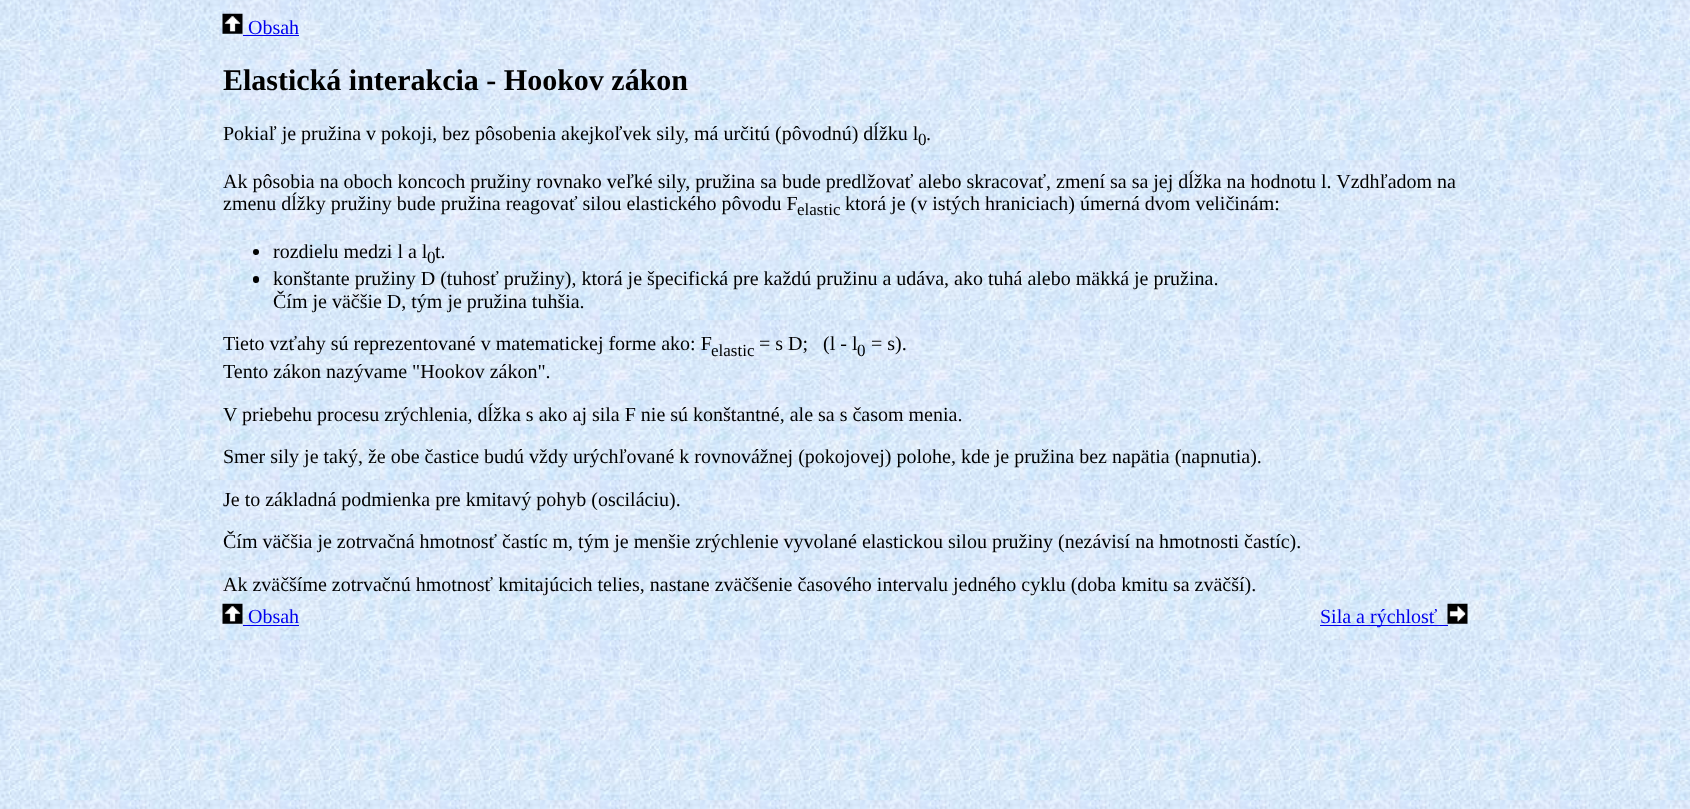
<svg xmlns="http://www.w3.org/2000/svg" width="1690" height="809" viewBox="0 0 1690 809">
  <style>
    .t1 { font: 20px Liberation Serif; fill: #00e; }
    .t2 { font: bold 30px Liberation Serif; fill: #000; }
    .t3 { font: 20px Liberation Serif; fill: #000; }
    .t4 { font: 17px Liberation Serif; fill: #000; }
  </style>
  <rect width="100%" height="100%" fill="#fff"/>
  <image x="0" y="0" width="1690" height="809" href="images/1.png"/>
  <image x="222" y="13" width="21" height="21" href="images/2.png"/>
  <text x="248" y="34" class="t1">Obsah</text>
  <rect x="243" y="35" width="56" height="1" fill="#00e"/>
  <text x="223" y="90" class="t2">Elastická interakcia - Hookov zákon</text>
  <text x="223" y="140" class="t3">Pokiaľ je pružina v pokoji, bez pôsobenia akejkoľvek sily, má určitú (pôvodnú) dĺžku l</text>
  <text x="918" y="145" class="t4">0</text>
  <text x="926" y="140" class="t3">.</text>
  <text x="223" y="188" class="t3">Ak pôsobia na oboch koncoch pružiny rovnako veľké sily, pružina sa bude predlžovať alebo skracovať, zmení sa sa jej dĺžka na hodnotu l. Vzdhľadom na</text>
  <text x="223" y="210" class="t3">zmenu dĺžky pružiny bude pružina reagovať silou elastického pôvodu F</text>
  <text x="797" y="215" class="t4">elastic</text>
  <text x="845" y="210" class="t3">ktorá je (v istých hraniciach) úmerná dvom veličinám:</text>
  <circle cx="256" cy="252" r="3" fill="#000"/>
  <text x="273" y="258" class="t3">rozdielu medzi l a l</text>
  <text x="427" y="263" class="t4">0</text>
  <text x="435" y="258" class="t3">t.</text>
  <rect x="253" y="276" width="6" height="7" rx="3" fill="#000"/>
  <text x="273" y="285" class="t3">konštante pružiny D (tuhosť pružiny), ktorá je špecifická pre každú pružinu a udáva, ako tuhá alebo mäkká je pružina.</text>
  <text x="273" y="308" class="t3">Čím je väčšie D, tým je pružina tuhšia.</text>
  <text x="223" y="350" class="t3">Tieto vzťahy sú reprezentované v matematickej forme ako: F</text>
  <text x="711" y="356" class="t4">elastic</text>
  <text x="759" y="350" class="t3" xml:space="preserve">= s D;   (l - l</text>
  <text x="857" y="356" class="t4">0</text>
  <text x="871" y="350" class="t3">= s).</text>
  <text x="223" y="378" class="t3">Tento zákon nazývame "Hookov zákon".</text>
  <text x="223" y="421" class="t3">V priebehu procesu zrýchlenia, dĺžka s ako aj sila F nie sú konštantné, ale sa s časom menia.</text>
  <text x="223" y="463" class="t3">Smer sily je taký, že obe častice budú vždy urýchľované k rovnovážnej (pokojovej) polohe, kde je pružina bez napätia (napnutia).</text>
  <text x="223" y="506" class="t3">Je to základná podmienka pre kmitavý pohyb (osciláciu).</text>
  <text x="223" y="548" class="t3">Čím väčšia je zotrvačná hmotnosť častíc m, tým je menšie zrýchlenie vyvolané elastickou silou pružiny (nezávisí na hmotnosti častíc).</text>
  <text x="223" y="591" class="t3">Ak zväčšíme zotrvačnú hmotnosť kmitajúcich telies, nastane zväčšenie časového intervalu jedného cyklu (doba kmitu sa zväčší).</text>
  <image x="222" y="603" width="21" height="21" href="images/3.png"/>
  <text x="248" y="623" class="t1">Obsah</text>
  <rect x="243" y="625" width="56" height="1" fill="#00e"/>
  <rect x="1320" y="625" width="128" height="1" fill="#00e"/>
  <text x="1320" y="623" class="t1">Sila a rýchlosť</text>
  <image x="1447" y="603" width="21" height="21" href="images/4.png"/>
</svg>
